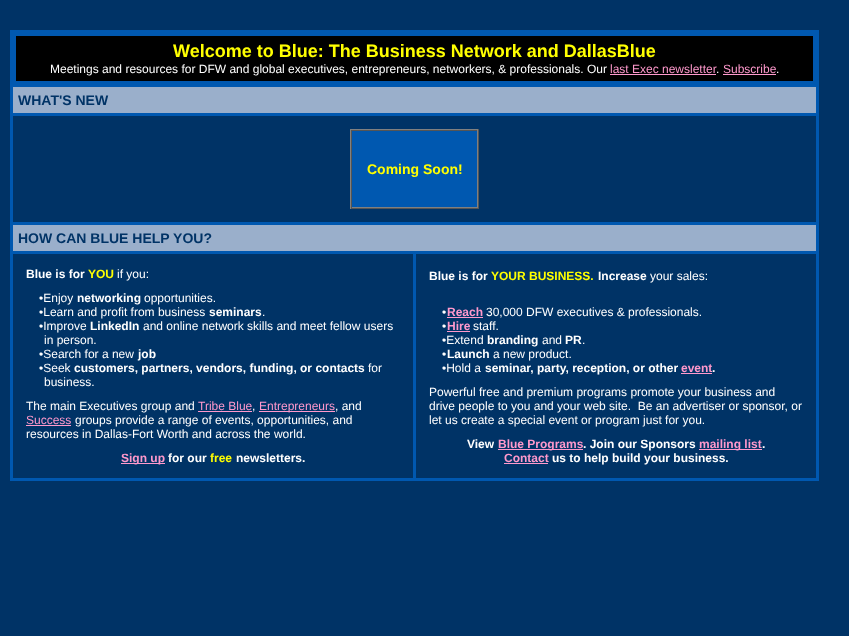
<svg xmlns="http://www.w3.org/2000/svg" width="849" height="636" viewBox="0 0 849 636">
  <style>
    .t1 { font: bold 18px Liberation Sans; fill: #ff0; }
    .t2 { font: 12px Liberation Sans; fill: #fff; }
    .t3 { font: 12px Liberation Sans; fill: #f9c; }
    .t4 { font: bold 14px Liberation Sans; fill: #036; }
    .t5 { font: bold 14px Liberation Sans; fill: #ff0; }
    .t6 { font: bold 12px Liberation Sans; fill: #fff; }
    .t7 { font: bold 12px Liberation Sans; fill: #ff0; }
    .t8 { font: bold 12px Liberation Sans; fill: #f9c; }
  </style>
  <rect width="100%" height="100%" fill="#036"/>
  <rect x="10" y="30" width="809" height="451" fill="#0058b0"/>
  <rect x="16" y="36" width="797" height="45" fill="#000"/>
  <text x="173" y="57" class="t1">Welcome to Blue: The Business Network and DallasBlue</text>
  <text x="50" y="73" class="t2">Meetings and resources for DFW and global executives, entrepreneurs, networkers, &amp; professionals. Our</text>
  <text x="610" y="73" class="t3">last Exec newsletter</text>
  <text x="716" y="73" class="t2">.</text>
  <rect x="610" y="74" width="106" height="1" fill="#f9c"/>
  <text x="723" y="73" class="t3">Subscribe</text>
  <text x="776" y="73" class="t2">.</text>
  <rect x="723" y="74" width="53" height="1" fill="#f9c"/>
  <rect x="13" y="87" width="803" height="26" fill="#9aafcb"/>
  <text x="18" y="105" class="t4">WHAT'S NEW</text>
  <rect x="13" y="116" width="803" height="106" fill="#036"/>
  <rect x="350" y="129" width="129" height="1" fill="#808080"/>
  <rect x="478" y="129" width="1" height="80" fill="#555"/>
  <rect x="350" y="208" width="129" height="1" fill="#555"/>
  <rect x="350" y="129" width="1" height="80" fill="#808080"/>
  <rect x="352" y="131" width="125" height="76" fill="#0058b0"/>
  <rect x="351" y="130" width="127" height="1" fill="#555"/>
  <rect x="477" y="130" width="1" height="78" fill="#808080"/>
  <rect x="351" y="207" width="127" height="1" fill="#808080"/>
  <rect x="351" y="130" width="1" height="78" fill="#555"/>
  <text x="367" y="174" class="t5">Coming Soon!</text>
  <rect x="13" y="225" width="803" height="26" fill="#9aafcb"/>
  <text x="18" y="243" class="t4">HOW CAN BLUE HELP YOU?</text>
  <rect x="13" y="254" width="400" height="224" fill="#036"/>
  <text x="26" y="278" class="t6">Blue is for</text>
  <text x="88" y="278" class="t7">YOU</text>
  <text x="117" y="278" class="t2">if you:</text>
  <text x="39" y="302" class="t2">•Enjoy</text>
  <text x="77" y="302" class="t6">networking</text>
  <text x="144" y="302" class="t2">opportunities.</text>
  <text x="39" y="316" class="t2">•Learn and profit from business</text>
  <text x="209" y="316" class="t6">seminars</text>
  <text x="262" y="316" class="t2">.</text>
  <text x="39" y="330" class="t2">•Improve</text>
  <text x="90" y="330" class="t6">LinkedIn</text>
  <text x="143" y="330" class="t2">and online network skills and meet fellow users</text>
  <text x="44" y="344" class="t2">in person.</text>
  <text x="39" y="358" class="t2">•Search for a new</text>
  <text x="138" y="358" class="t6">job</text>
  <text x="39" y="372" class="t2">•Seek</text>
  <text x="74" y="372" class="t6">customers, partners, vendors, funding, or contacts</text>
  <text x="368" y="372" class="t2">for</text>
  <text x="44" y="386" class="t2">business.</text>
  <text x="26" y="410" class="t2">The main Executives group and</text>
  <text x="198" y="410" class="t3">Tribe Blue</text>
  <rect x="198" y="411" width="54" height="1" fill="#f9c"/>
  <text x="252" y="410" class="t2">,</text>
  <rect x="259" y="411" width="76" height="1" fill="#f9c"/>
  <text x="259" y="410" class="t3">Entrepreneurs</text>
  <text x="335" y="410" class="t2">, and</text>
  <text x="26" y="424" class="t3">Success</text>
  <rect x="26" y="425" width="45" height="1" fill="#f9c"/>
  <text x="75" y="424" class="t2">groups provide a range of events, opportunities, and</text>
  <text x="26" y="438" class="t2">resources in Dallas-Fort Worth and across the world.</text>
  <rect x="121" y="463" width="44" height="1" fill="#f9c"/>
  <text x="121" y="462" class="t8">Sign up</text>
  <text x="168" y="462" class="t6">for our</text>
  <text x="210" y="462" class="t7">free</text>
  <text x="236" y="462" class="t6">newsletters.</text>
  <rect x="416" y="254" width="400" height="224" fill="#036"/>
  <text x="429" y="280" class="t6">Blue is for</text>
  <text x="491" y="280" class="t7">YOUR BUSINESS.</text>
  <text x="598" y="280" class="t6">Increase</text>
  <text x="650" y="280" class="t2">your sales:</text>
  <text x="442" y="316" class="t2">•</text>
  <text x="447" y="316" class="t8">Reach</text>
  <rect x="447" y="317" width="36" height="1" fill="#f9c"/>
  <text x="486" y="316" class="t2">30,000 DFW executives &amp; professionals.</text>
  <text x="442" y="330" class="t2">•</text>
  <text x="447" y="330" class="t8">Hire</text>
  <rect x="447" y="331" width="23" height="1" fill="#f9c"/>
  <text x="473" y="330" class="t2">staff.</text>
  <text x="442" y="344" class="t2">•Extend</text>
  <text x="487" y="344" class="t6">branding</text>
  <text x="542" y="344" class="t2">and</text>
  <text x="565" y="344" class="t6">PR</text>
  <text x="582" y="344" class="t2">.</text>
  <text x="442" y="358" class="t2">•</text>
  <text x="447" y="358" class="t6">Launch</text>
  <text x="493" y="358" class="t2">a new product.</text>
  <text x="442" y="372" class="t2">•Hold a</text>
  <text x="485" y="372" class="t6">seminar, party, reception, or other</text>
  <text x="681" y="372" class="t8">event</text>
  <text x="712" y="372" class="t6">.</text>
  <rect x="681" y="373" width="31" height="1" fill="#f9c"/>
  <text x="429" y="396" class="t2">Powerful free and premium programs promote your business and</text>
  <text x="429" y="410" class="t2" xml:space="preserve">drive people to you and your web site.  Be an advertiser or sponsor, or</text>
  <text x="429" y="424" class="t2">let us create a special event or program just for you.</text>
  <text x="467" y="448" class="t6">View</text>
  <rect x="498" y="449" width="85" height="1" fill="#f9c"/>
  <text x="498" y="448" class="t8">Blue Programs</text>
  <text x="583" y="448" class="t6">. Join our Sponsors</text>
  <rect x="699" y="449" width="63" height="1" fill="#f9c"/>
  <text x="699" y="448" class="t8">mailing list</text>
  <text x="762" y="448" class="t6">.</text>
  <text x="504" y="462" class="t8">Contact</text>
  <rect x="504" y="463" width="44" height="1" fill="#f9c"/>
  <text x="552" y="462" class="t6">us to help build your business.</text>
</svg>
